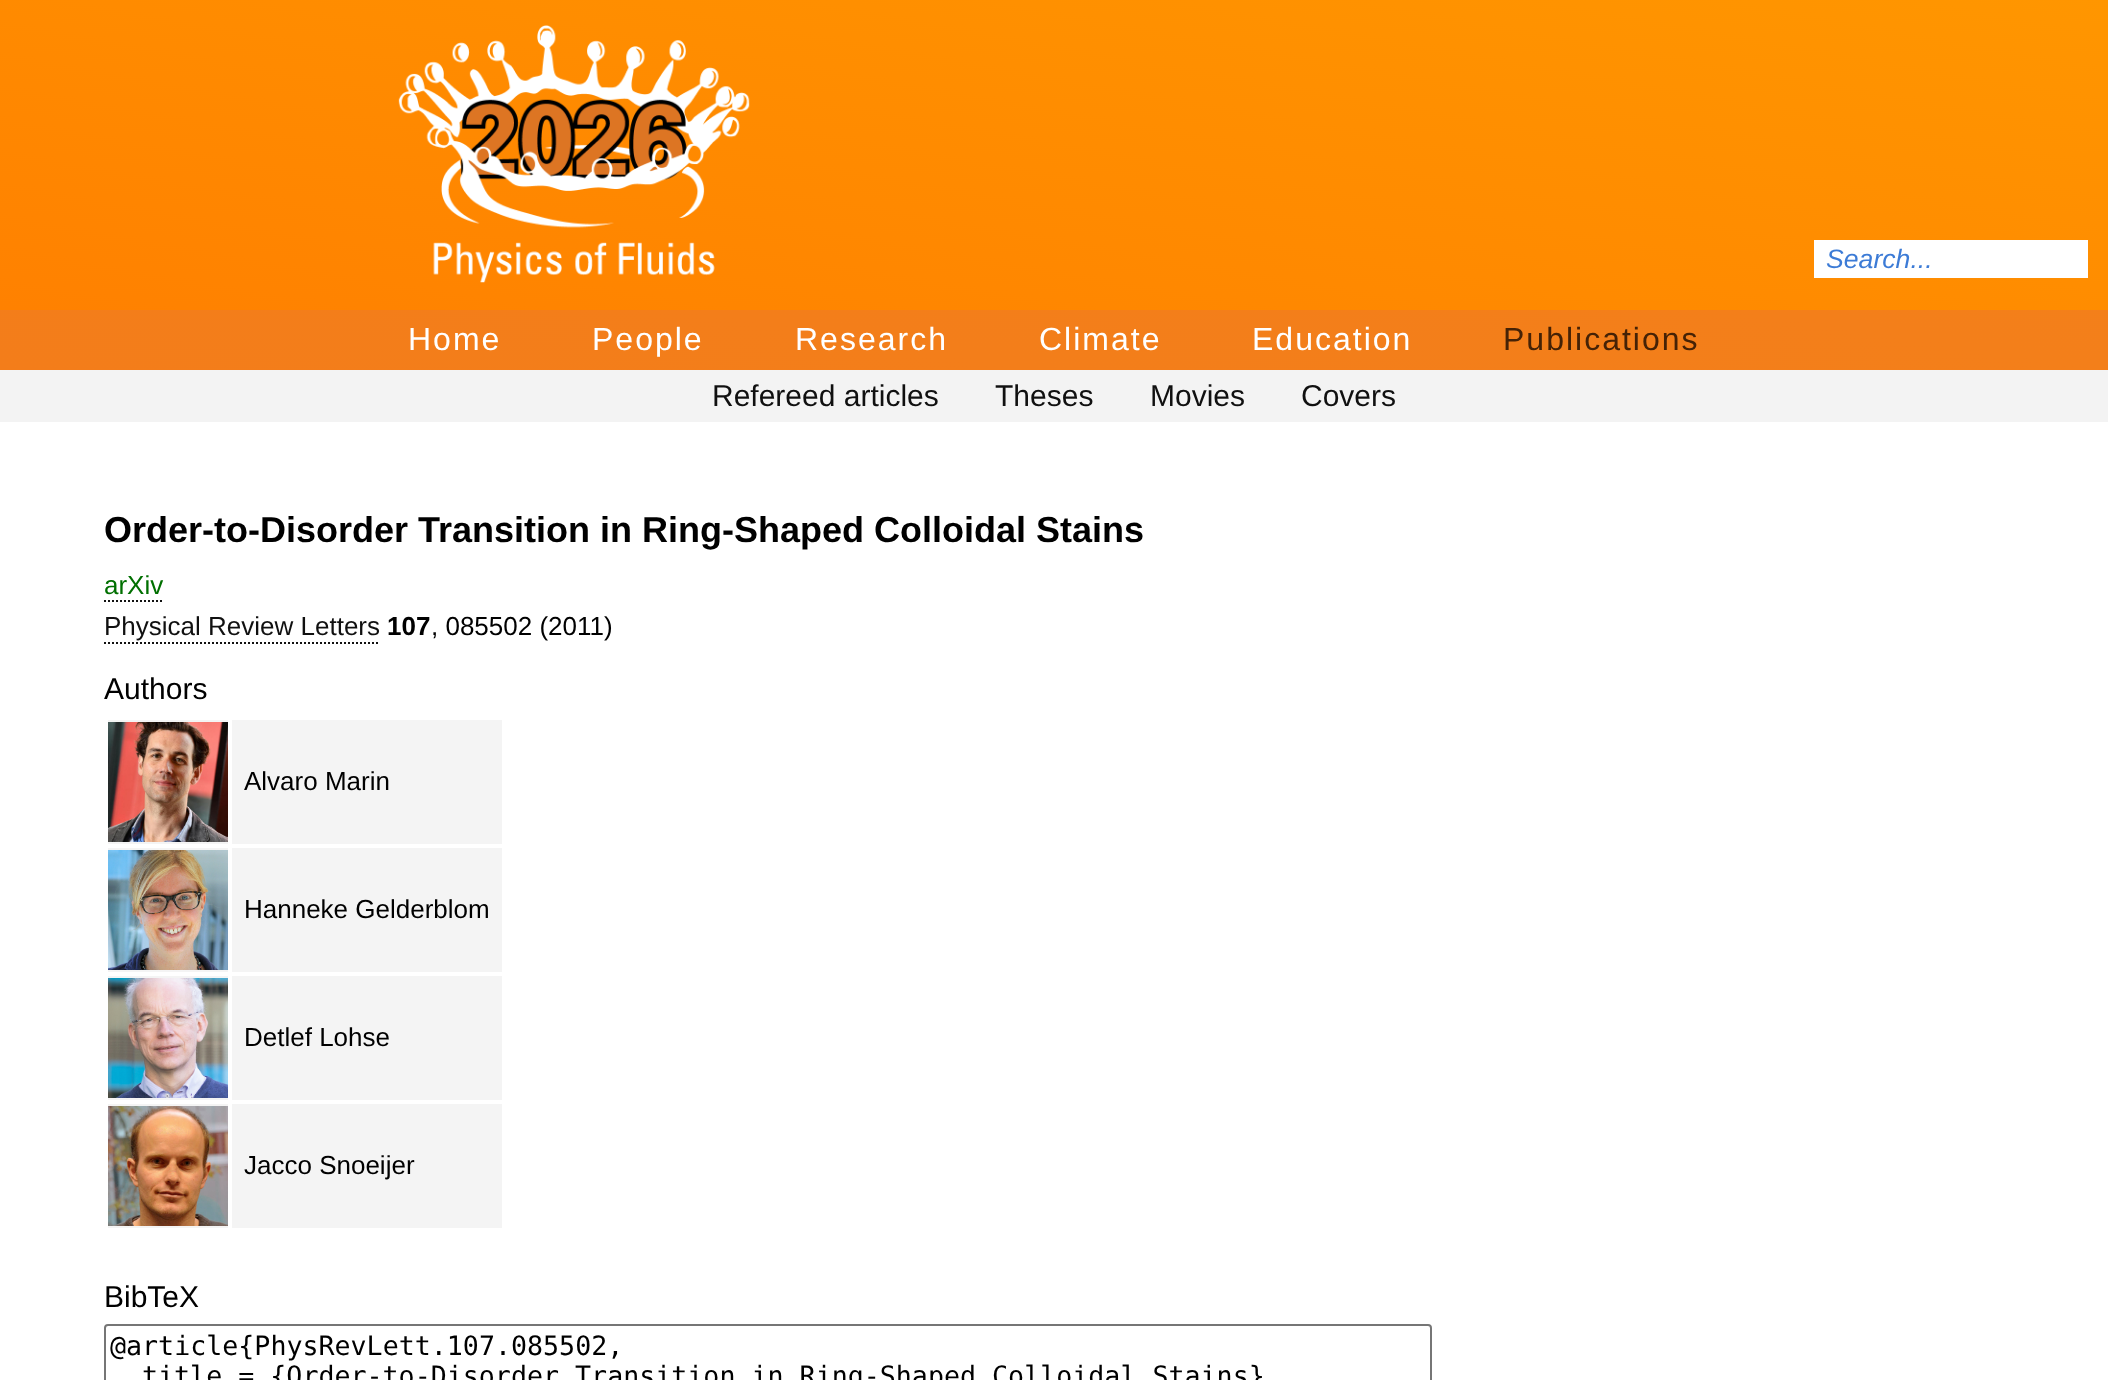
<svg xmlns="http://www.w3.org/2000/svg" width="2108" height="1380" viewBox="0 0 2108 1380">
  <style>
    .t1 { font: italic 26.65px Liberation Sans; fill: #3c7bd6; }
    .t2 { font: 32px Liberation Sans; letter-spacing: 2px; fill: #fff; }
    .t3 { font: 32px Liberation Sans; letter-spacing: 2px; fill: #452206; }
    .t4 { font: 30px Liberation Sans; fill: #101010; }
    .t5 { font: bold 36px Liberation Sans; fill: #000; }
    .t6 { font: 26px Liberation Sans; fill: #006f00; }
    .t7 { font: 26px Liberation Sans; fill: #101010; }
    .t8 { font: bold 26px Liberation Sans; fill: #000; }
    .t9 { font: 26px Liberation Sans; fill: #000; }
    .t10 { font: 30px Liberation Sans; fill: #000; }
    .t11 { font: 26.65px DejaVu Sans Mono; fill: #000; }
  </style>
  <defs>
    <linearGradient id="g1" gradientUnits="userSpaceOnUse" x1="991" y1="545" x2="1117" y2="-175"><stop offset="0" stop-color="#ff7f00"/><stop offset="1" stop-color="#ff9600"/></linearGradient>
    <linearGradient id="g2" gradientUnits="userSpaceOnUse" x1="991" y1="545" x2="1117" y2="-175"><stop offset="0" stop-color="#f37d1a"/><stop offset="1" stop-color="#f3811a"/></linearGradient>
  </defs>
  <rect width="100%" height="100%" fill="#fff"/>
  <rect x="0" y="0" width="2108" height="310" fill="url(#g1)"/>
  <rect x="0" y="310" width="2108" height="60" fill="url(#g2)"/>
  <image x="398" y="25" width="352" height="258" href="images/1.png"/>
  <rect x="1814" y="240" width="274" height="38" fill="#fff"/>
  <text x="1826" y="268" class="t1">Search...</text>
  <text x="408" y="350" class="t2">Home</text>
  <text x="592" y="350" class="t2">People</text>
  <text x="795" y="350" class="t2">Research</text>
  <text x="1039" y="350" class="t2">Climate</text>
  <text x="1252" y="350" class="t2">Education</text>
  <text x="1503" y="350" class="t3">Publications</text>
  <rect x="0" y="370" width="2108" height="52" fill="#f3f3f3"/>
  <text x="712" y="406" class="t4">Refereed articles</text>
  <text x="995" y="406" class="t4">Theses</text>
  <text x="1150" y="406" class="t4">Movies</text>
  <text x="1301" y="406" class="t4">Covers</text>
  <text x="104" y="542" class="t5">Order-to-Disorder Transition in Ring-Shaped Colloidal Stains</text>
  <text x="104" y="594" class="t6">arΧiv</text>
  <path d="M104 601H164" fill="none" stroke="#111" stroke-width="2" stroke-dasharray="2 2"/>
  <text x="104" y="635" class="t7">Physical Review Letters</text>
  <path d="M104 643H380" fill="none" stroke="#111" stroke-width="2" stroke-dasharray="2 2"/>
  <text x="387" y="635" class="t8">107</text>
  <text x="431" y="635" class="t9">, 085502 (2011)</text>
  <text x="104" y="699" class="t10">Authors</text>
  <rect x="108" y="720" width="120" height="124" fill="#f4f4f4"/>
  <image x="108" y="722" width="120" height="120" href="images/2.png"/>
  <rect x="232" y="720" width="270" height="124" fill="#f4f4f4"/>
  <text x="244" y="790" class="t9">Alvaro Marin</text>
  <rect x="108" y="848" width="120" height="124" fill="#f4f4f4"/>
  <image x="108" y="850" width="120" height="120" href="images/3.png"/>
  <rect x="232" y="848" width="270" height="124" fill="#f4f4f4"/>
  <text x="244" y="918" class="t9">Hanneke Gelderblom</text>
  <rect x="108" y="976" width="120" height="124" fill="#f4f4f4"/>
  <image x="108" y="978" width="120" height="120" href="images/4.png"/>
  <rect x="232" y="976" width="270" height="124" fill="#f4f4f4"/>
  <text x="244" y="1046" class="t9">Detlef Lohse</text>
  <rect x="108" y="1104" width="120" height="124" fill="#f4f4f4"/>
  <image x="108" y="1106" width="120" height="120" href="images/5.png"/>
  <rect x="232" y="1104" width="270" height="124" fill="#f4f4f4"/>
  <text x="244" y="1174" class="t9">Jacco Snoeijer</text>
  <text x="104" y="1307" class="t10">BibTeΧ</text>
  <rect x="105" y="1325" width="1326" height="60" rx="3" fill="none" stroke="#767676" stroke-width="2"/>
  <text x="110" y="1355" class="t11">@article{PhysRevLett.107.085502,</text>
  <text x="142" y="1385" class="t11">title = {Order-to-Disorder Transition in Ring-Shaped Colloidal Stains}</text>
</svg>
